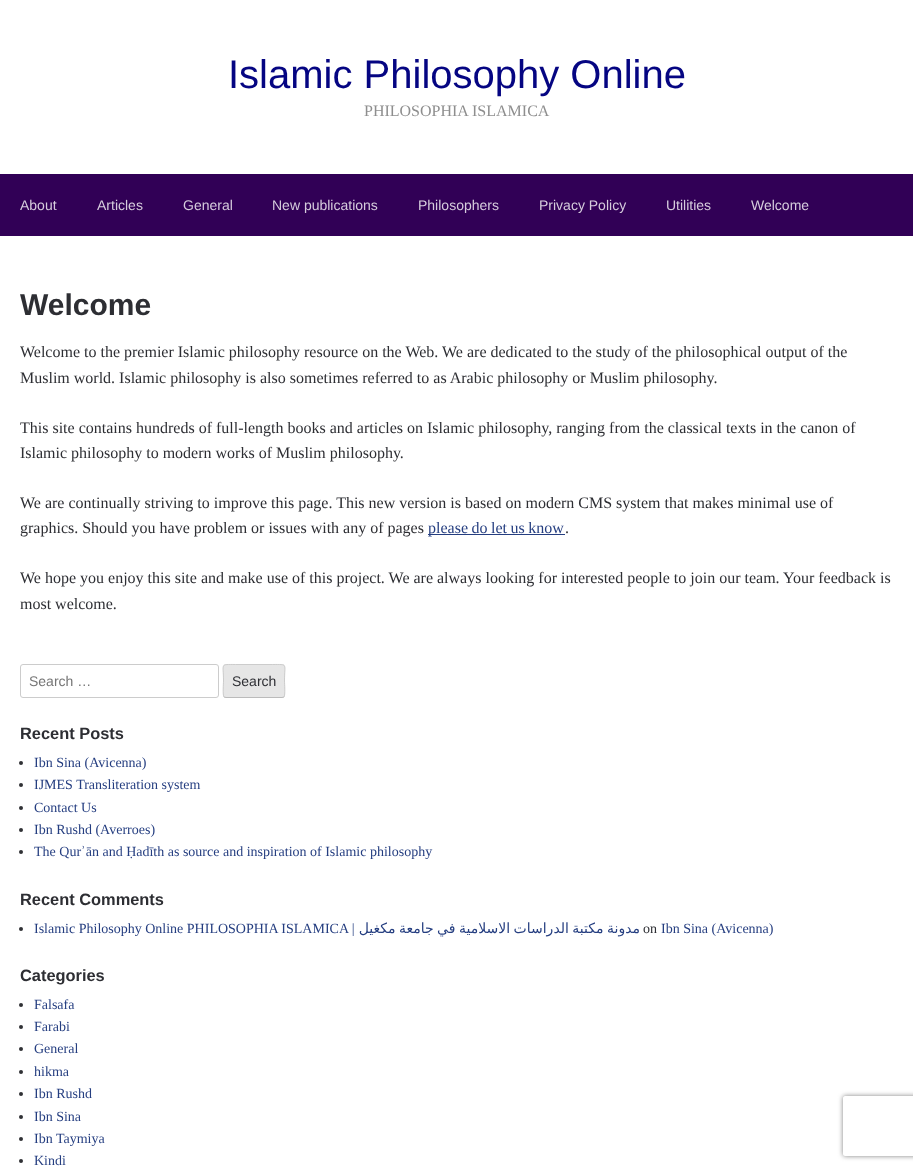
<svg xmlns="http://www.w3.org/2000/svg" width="913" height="1170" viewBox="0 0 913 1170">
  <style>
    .t1 { font: 40px Liberation Sans; fill: #050582; }
    .t2 { font: 16px Liberation Serif; fill: #8e8e8e; }
    .t3 { font: 14px Liberation Sans; fill: #d6ccdd; }
    .t4 { font: bold 30px Liberation Sans; fill: #2d2e33; }
    .t5 { font: 16px Liberation Serif; fill: #2d2e33; }
    .t6 { font: 16px Liberation Serif; fill: #253e80; }
    .t7 { font: 14px Liberation Sans; fill: #757575; }
    .t8 { font: 14px Liberation Sans; fill: #2d2e33; }
    .t9 { font: bold 16.4px Liberation Sans; fill: #2d2e33; }
    .t10 { font: 14px Liberation Serif; fill: #253e80; }
    .t11 { font: 14px DejaVu Sans; direction: rtl; fill: #253e80; }
    .t12 { font: 14px Liberation Serif; fill: #2d2e33; }
  </style>
  <defs>
    <clipPath id="clip1"><path d="M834 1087H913V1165H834ZM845 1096H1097C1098 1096 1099 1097 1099 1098V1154C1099 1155 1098 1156 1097 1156H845C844 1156 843 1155 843 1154V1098C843 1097 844 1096 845 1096Z" clip-rule="evenodd"/></clipPath>
  </defs>
  <rect width="100%" height="100%" fill="#fff"/>
  <text x="228" y="88" class="t1">Islamic Philosophy Online</text>
  <text x="364" y="116" class="t2">PHILOSOPHIA ISLAMICA</text>
  <rect x="0" y="174" width="913" height="62" fill="#310056"/>
  <text x="20" y="210" class="t3">About</text>
  <text x="97" y="210" class="t3">Articles</text>
  <text x="183" y="210" class="t3">General</text>
  <text x="272" y="210" class="t3">New publications</text>
  <text x="418" y="210" class="t3">Philosophers</text>
  <text x="539" y="210" class="t3">Privacy Policy</text>
  <text x="666" y="210" class="t3">Utilities</text>
  <text x="751" y="210" class="t3">Welcome</text>
  <text x="20" y="315" class="t4">Welcome</text>
  <text x="20" y="357" class="t5">Welcome to the premier Islamic philosophy resource on the Web. We are dedicated to the study of the philosophical output of the</text>
  <text x="20" y="383" class="t5">Muslim world. Islamic philosophy is also sometimes referred to as Arabic philosophy or Muslim philosophy.</text>
  <text x="20" y="433" class="t5">This site contains hundreds of full-length books and articles on Islamic philosophy, ranging from the classical texts in the canon of</text>
  <text x="20" y="458" class="t5">Islamic philosophy to modern works of Muslim philosophy.</text>
  <text x="20" y="508" class="t5">We are continually striving to improve this page. This new version is based on modern CMS system that makes minimal use of</text>
  <text x="20" y="533" class="t5">graphics. Should you have problem or issues with any of pages</text>
  <rect x="428" y="534" width="137" height="1" fill="#253e80"/>
  <text x="428" y="533" word-spacing="-0.5" class="t6">please do let us know</text>
  <text x="565" y="533" class="t5">.</text>
  <text x="20" y="583" class="t5">We hope you enjoy this site and make use of this project. We are always looking for interested people to join our team. Your feedback is</text>
  <text x="20" y="609" class="t5">most welcome.</text>
  <rect x="20.5" y="664.5" width="198" height="33" rx="2.5" fill="none" stroke="#ccc"/>
  <text x="29" y="686" class="t7">Search …</text>
  <rect x="223" y="664" width="62" height="34" rx="3" fill="#e6e6e6"/>
  <path d="M284 697L282 697.5H226L224 697" fill="none" stroke="#bbb"/>
  <path d="M224 697C222.5 695 223.5 683.5 223.5 681C223.5 663 219.5 664.5 235.5 664.5H272.5C288.5 664.5 284.5 663 284.5 681C284.5 683.5 285.5 695 284 697" fill="none" stroke="#ccc"/>
  <text x="232" y="686" class="t8">Search</text>
  <text x="20" y="739" class="t9">Recent Posts</text>
  <circle cx="21" cy="763" r="2" fill="#303135"/>
  <text x="34" y="767" class="t10">Ibn Sina (Avicenna)</text>
  <circle cx="21" cy="785" r="2" fill="#303135"/>
  <text x="34" y="789" class="t10">IJMES Transliteration system</text>
  <circle cx="21" cy="808" r="2" fill="#303135"/>
  <text x="34" y="812" class="t10">Contact Us</text>
  <circle cx="21" cy="830" r="2" fill="#303135"/>
  <text x="34" y="834" class="t10">Ibn Rushd (Averroes)</text>
  <circle cx="21" cy="852" r="2" fill="#303135"/>
  <text x="34" y="856" class="t10">The Qurʾān and Ḥadīth as source and inspiration of Islamic philosophy</text>
  <text x="20" y="905" class="t9">Recent Comments</text>
  <circle cx="21" cy="929" r="2" fill="#303135"/>
  <text x="34" y="933" class="t10">Islamic Philosophy Online PHILOSOPHIA ISLAMICA |</text>
  <text x="640" y="933" word-spacing="-1" class="t11">مدونة مكتبة الدراسات الاسلامية في جامعة مكغيل</text>
  <text x="643" y="933" class="t12">on</text>
  <text x="661" y="933" class="t10">Ibn Sina (Avicenna)</text>
  <text x="20" y="981" class="t9">Categories</text>
  <circle cx="21" cy="1005" r="2" fill="#303135"/>
  <text x="34" y="1009" class="t10">Falsafa</text>
  <circle cx="21" cy="1027" r="2" fill="#303135"/>
  <text x="34" y="1031" class="t10">Farabi</text>
  <circle cx="21" cy="1049" r="2" fill="#303135"/>
  <text x="34" y="1053" class="t10">General</text>
  <circle cx="21" cy="1072" r="2" fill="#303135"/>
  <text x="34" y="1076" class="t10">hikma</text>
  <circle cx="21" cy="1094" r="2" fill="#303135"/>
  <text x="34" y="1098" class="t10">Ibn Rushd</text>
  <circle cx="21" cy="1117" r="2" fill="#303135"/>
  <text x="34" y="1121" class="t10">Ibn Sina</text>
  <circle cx="21" cy="1139" r="2" fill="#303135"/>
  <text x="34" y="1143" class="t10">Ibn Taymiya</text>
  <circle cx="21" cy="1161" r="2" fill="#303135"/>
  <text x="34" y="1165" class="t10">Kindi</text>
  <g clip-path="url(#clip1)">
    <rect x="843" y="1096" width="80" height="60" rx="2" fill="#808080" filter="blur(2.5px)"/>
  </g>
</svg>
